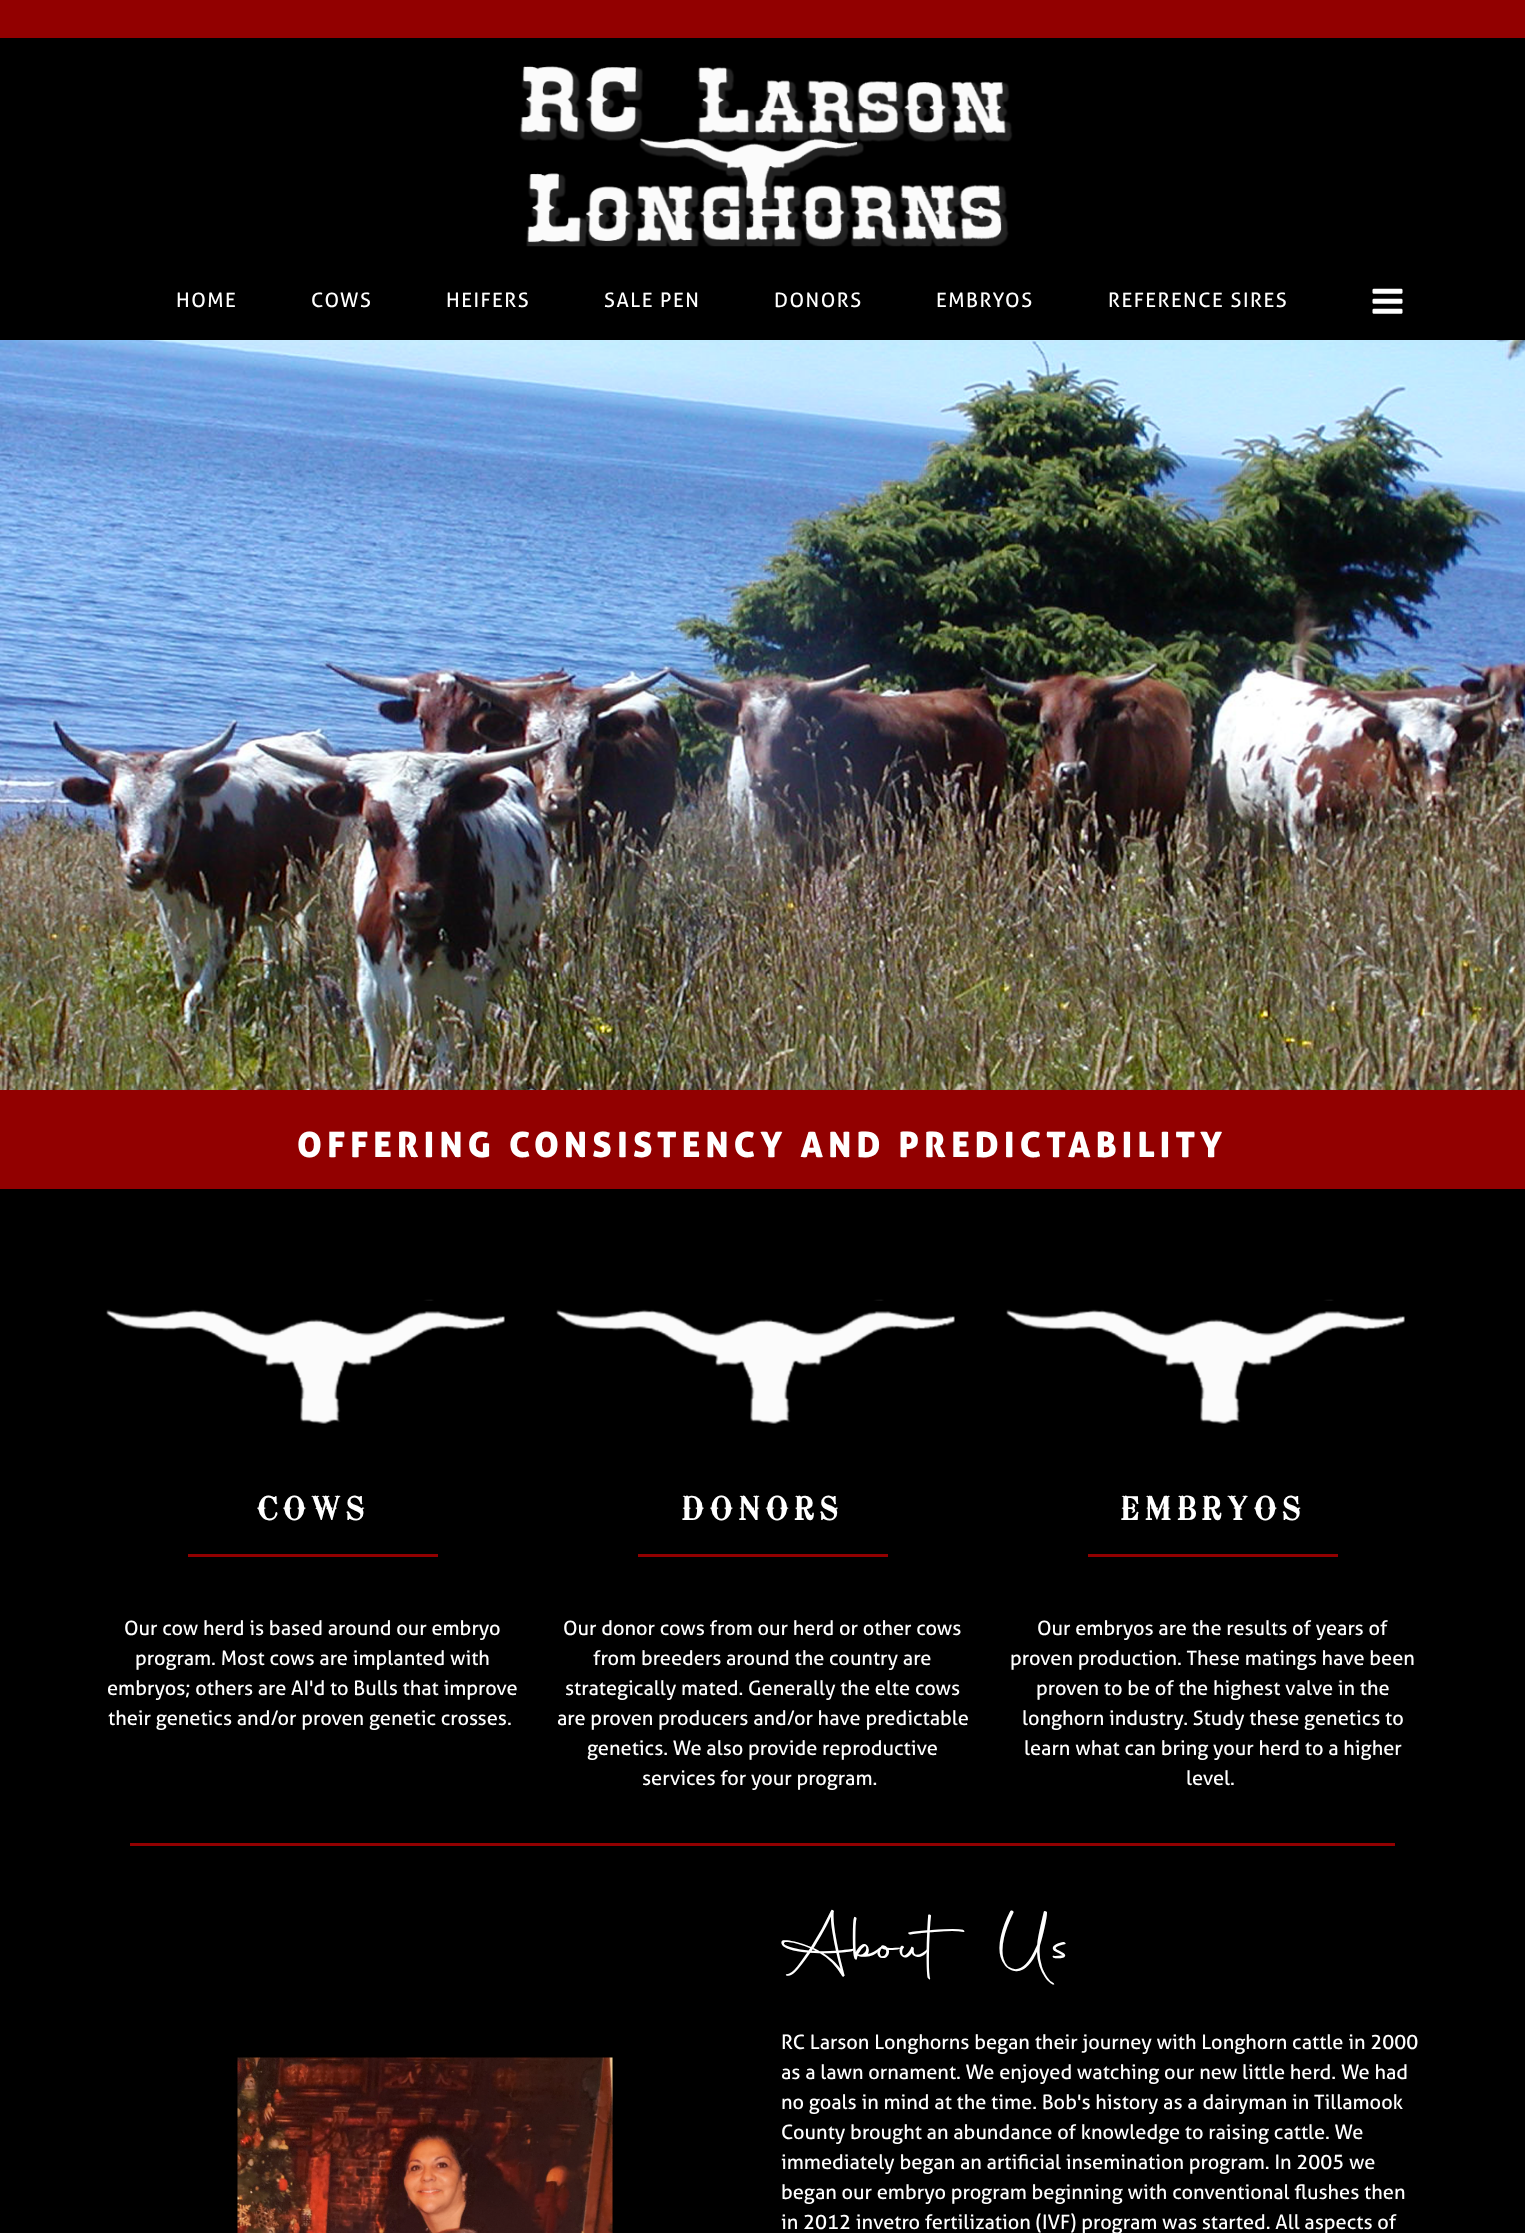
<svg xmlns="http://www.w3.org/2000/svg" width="1525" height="2233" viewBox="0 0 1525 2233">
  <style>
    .t1 { font: 20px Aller; letter-spacing: 1.5px; fill: #fff; }
    .t2 { font: 35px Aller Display; letter-spacing: 5.25px; fill: #fff; }
    .t3 { font: 30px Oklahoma; letter-spacing: 4.5px; fill: #fff; }
    .t4 { font: 20px Aller; fill: #fff; }
    .t5 { font: 70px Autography; fill: #fff; }
  </style>
  <rect width="100%" height="100%" fill="#000"/>
  <rect x="0" y="0" width="1525" height="38" fill="#920000"/>
  <image x="519" y="66" width="494" height="181" href="images/1.png"/>
  <text x="176" y="307" class="t1">HOME</text>
  <text x="311" y="307" class="t1">COWS</text>
  <text x="446" y="307" class="t1">HEIFERS</text>
  <text x="604" y="307" class="t1">SALE PEN</text>
  <text x="774" y="307" class="t1">DONORS</text>
  <text x="936" y="307" class="t1">EMBRYOS</text>
  <text x="1108" y="307" class="t1">REFERENCE SIRES</text>
  <image x="1372" y="288" width="31" height="26" href="images/2.png"/>
  <image x="0" y="340" width="1525" height="750" href="images/3.png"/>
  <rect x="0" y="1090" width="1525" height="99" fill="#920000"/>
  <text x="297" y="1157" class="t2">OFFERING CONSISTENCY AND PREDICTABILITY</text>
  <image x="106" y="1299" width="399" height="125" href="images/4.png"/>
  <text x="256" y="1520" class="t3">COWS</text>
  <rect x="188" y="1554" width="250" height="3" fill="#920000"/>
  <text x="124" y="1635" class="t4">Our cow herd is based around our embryo</text>
  <text x="135" y="1665" class="t4">program. Most cows are implanted with</text>
  <text x="107" y="1695" class="t4">embryos; others are AI'd to Bulls that improve</text>
  <text x="108" y="1725" class="t4">their genetics and/or proven genetic crosses.</text>
  <image x="556" y="1299" width="399" height="125" href="images/4.png"/>
  <text x="681" y="1520" class="t3">DONORS</text>
  <rect x="638" y="1554" width="250" height="3" fill="#920000"/>
  <text x="563" y="1635" class="t4">Our donor cows from our herd or other cows</text>
  <text x="593" y="1665" class="t4">from breeders around the country are</text>
  <text x="565" y="1695" class="t4">strategically mated. Generally the elte cows</text>
  <text x="557" y="1725" class="t4">are proven producers and/or have predictable</text>
  <text x="587" y="1755" class="t4">genetics. We also provide reproductive</text>
  <text x="642" y="1785" class="t4">services for your program.</text>
  <image x="1006" y="1299" width="399" height="125" href="images/4.png"/>
  <text x="1120" y="1520" class="t3">EMBRYOS</text>
  <rect x="1088" y="1554" width="250" height="3" fill="#920000"/>
  <text x="1037" y="1635" class="t4">Our embryos are the results of years of</text>
  <text x="1010" y="1665" class="t4">proven production. These matings have been</text>
  <text x="1036" y="1695" class="t4">proven to be of the highest valve in the</text>
  <text x="1022" y="1725" class="t4">longhorn industry. Study these genetics to</text>
  <text x="1024" y="1755" class="t4">learn what can bring your herd to a higher</text>
  <text x="1186" y="1785" class="t4">level.</text>
  <rect x="130" y="1843" width="1265" height="3" fill="#920000"/>
  <image x="237" y="2057" width="376" height="176" href="images/5.png"/>
  <text x="781" y="1959" class="t5">About Us</text>
  <text x="781" y="2049" class="t4">RC Larson Longhorns began their journey with Longhorn cattle in 2000</text>
  <text x="781" y="2079" class="t4">as a lawn ornament. We enjoyed watching our new little herd. We had</text>
  <text x="781" y="2109" class="t4">no goals in mind at the time. Bob's history as a dairyman in Tillamook</text>
  <text x="781" y="2139" class="t4">County brought an abundance of knowledge to raising cattle. We</text>
  <text x="781" y="2169" class="t4">immediately began an artificial insemination program. In 2005 we</text>
  <text x="781" y="2199" class="t4">began our embryo program beginning with conventional flushes then</text>
  <text x="781" y="2229" class="t4">in 2012 invetro fertilization (IVF) program was started. All aspects of</text>
</svg>
